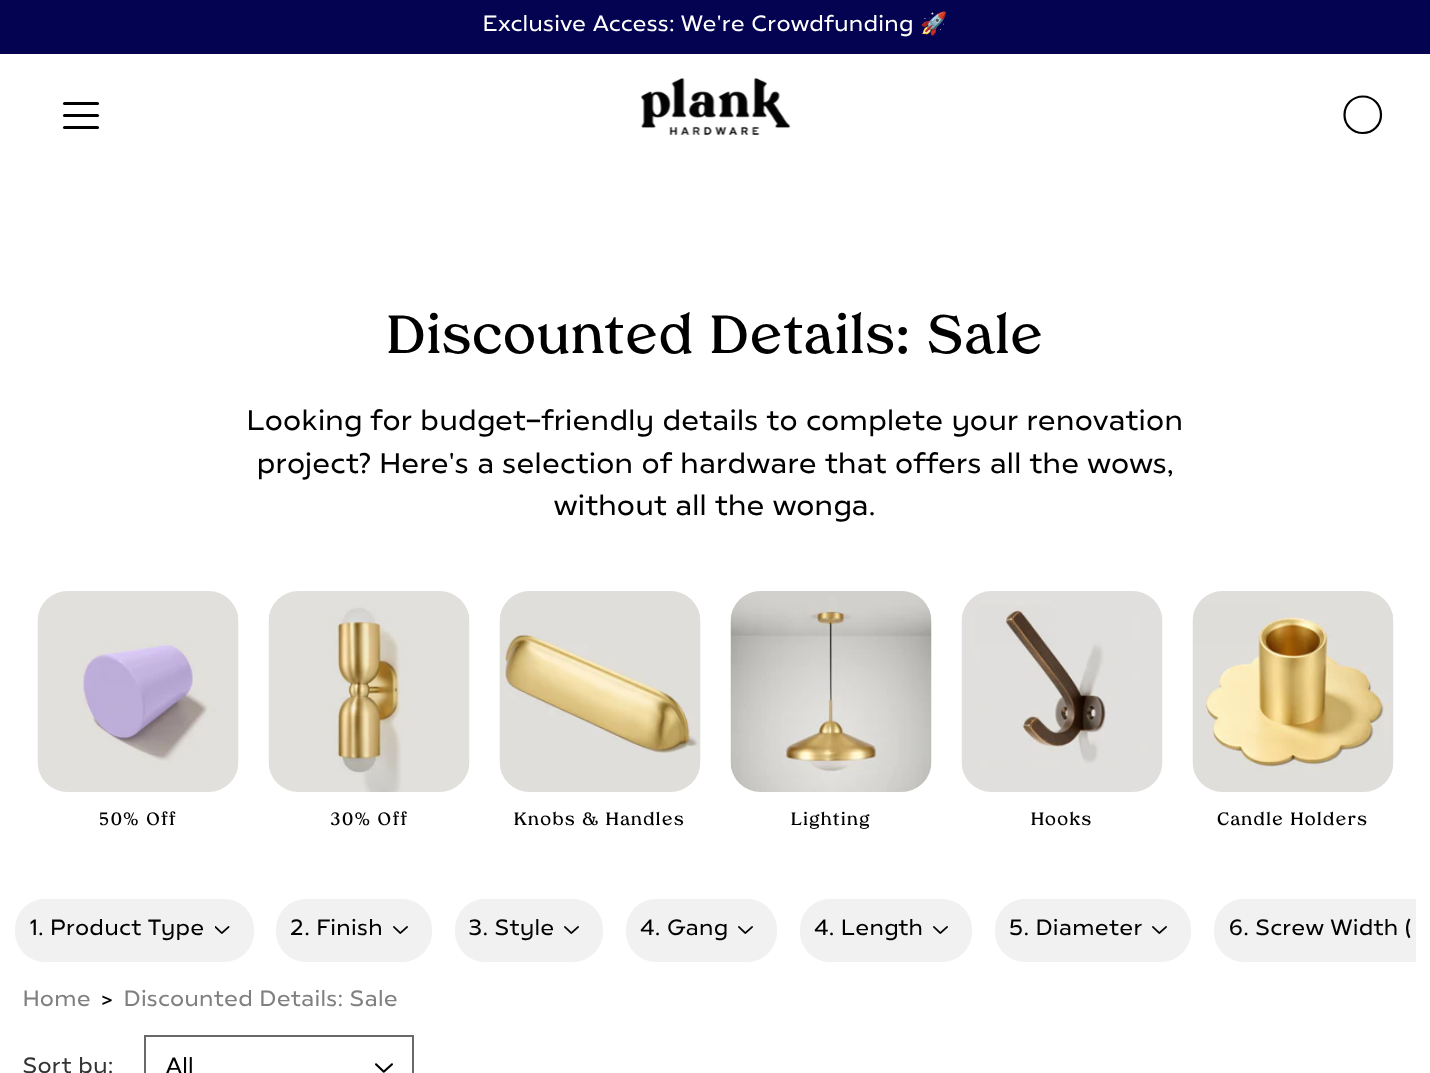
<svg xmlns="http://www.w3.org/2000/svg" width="1430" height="1073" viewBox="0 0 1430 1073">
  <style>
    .t1 { font: 600 22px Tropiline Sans; letter-spacing: 0.75px; fill: #fff; }
    .t2 { font: 22px Noto Color Emoji; letter-spacing: 0.75px; fill: #fff; }
    .t3 { font: 600 53.5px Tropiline; letter-spacing: 1.5px; fill: #000; }
    .t4 { font: 600 28.35px Tropiline Sans; letter-spacing: 0.75px; fill: #000; }
    .t5 { font: 600 17.75px Tropiline; letter-spacing: 1.5px; fill: #000; }
    .t6 { font: 600 22px Tropiline Sans; letter-spacing: 0.75px; fill: #000; }
    .t7 { font: 600 22px Tropiline Sans; letter-spacing: 0.75px; fill: #808080; }
    .t8 { font: 600 22px Tropiline Sans; letter-spacing: 0.75px; fill: #333; }
  </style>
  <rect width="100%" height="100%" fill="#fff"/>
  <rect x="0" y="0" width="1430" height="54" fill="#030352"/>
  <text x="483" y="31" class="t1">Exclusive Access: We're Crowdfunding</text>
  <text x="920" y="31" class="t2">🚀</text>
  <image x="640" y="78" width="151" height="57" href="images/1.png"/>
  <rect x="63" y="114" width="36" height="3" rx="1.5" fill="#000"/>
  <rect x="63" y="102" width="36" height="3" rx="1.5" fill="#000"/>
  <rect x="63" y="126" width="36" height="3" rx="1.5" fill="#000"/>
  <path d="M1381 115C1381 125 1373 133 1363 133C1352.5 133 1344.5 125 1344.5 115C1344.5 104.5 1352.5 96.5 1363 96.5C1373 96.5 1381 104.5 1381 115Z" fill="none" stroke="#000" stroke-width="2.2"/>
  <text x="387" y="353" class="t3">Discounted Details: Sale</text>
  <text x="247" y="430" class="t4">Looking for budget-friendly details to complete your renovation</text>
  <text x="257" y="473" class="t4">project? Here's a selection of hardware that offers all the wows,</text>
  <text x="554" y="515" class="t4">without all the wonga.</text>
  <image x="37" y="591" width="202" height="201" href="images/2.png"/>
  <text x="99" y="825" class="t5">50% Off</text>
  <image x="268" y="591" width="202" height="201" href="images/3.png"/>
  <text x="330" y="825" class="t5">30% Off</text>
  <image x="499" y="591" width="202" height="201" href="images/4.png"/>
  <text x="514" y="825" class="t5">Knobs &amp; Handles</text>
  <image x="730" y="591" width="202" height="201" href="images/5.png"/>
  <text x="791" y="825" class="t5">Lighting</text>
  <image x="961" y="591" width="202" height="201" href="images/6.png"/>
  <text x="1031" y="825" class="t5">Hooks</text>
  <image x="1192" y="591" width="202" height="201" href="images/7.png"/>
  <text x="1217" y="825" class="t5">Candle Holders</text>
  <rect x="15" y="899" width="239" height="63" rx="30" fill="#f1f1f1"/>
  <text x="30" y="935" class="t6">1. Product Type</text>
  <image x="215" y="926" width="15" height="8" href="images/8.png"/>
  <rect x="276" y="899" width="156" height="63" rx="30" fill="#f1f1f1"/>
  <text x="290" y="935" class="t6">2. Finish</text>
  <image x="393" y="926" width="15" height="8" href="images/9.png"/>
  <rect x="455" y="899" width="148" height="63" rx="30" fill="#f1f1f1"/>
  <text x="469" y="935" class="t6">3. Style</text>
  <image x="564" y="926" width="15" height="8" href="images/9.png"/>
  <rect x="626" y="899" width="151" height="63" rx="30" fill="#f1f1f1"/>
  <text x="640" y="935" class="t6">4. Gang</text>
  <image x="738" y="926" width="15" height="8" href="images/9.png"/>
  <rect x="800" y="899" width="172" height="63" rx="30" fill="#f1f1f1"/>
  <text x="814" y="935" class="t6">4. Length</text>
  <image x="933" y="926" width="15" height="8" href="images/9.png"/>
  <rect x="995" y="899" width="196" height="63" rx="30" fill="#f1f1f1"/>
  <text x="1009" y="935" class="t6">5. Diameter</text>
  <image x="1152" y="926" width="15" height="8" href="images/9.png"/>
  <path d="M1244 899H1416V962H1244C1227.5 962 1214 948.5 1214 932V929C1214 912.5 1227.5 899 1244 899Z" fill="#f1f1f1"/>
  <text x="1229" y="935" class="t6">6. Screw Width (</text>
  <text x="23" y="1006" class="t7">Home</text>
  <text x="102" y="1006" class="t6">&gt;</text>
  <text x="124" y="1006" class="t7">Discounted Details: Sale</text>
  <text x="23" y="1073" class="t8">Sort by:</text>
  <rect x="145" y="1036" width="268" height="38" fill="none" stroke="#696969" stroke-width="2"/>
  <text x="166" y="1073" class="t6">All</text>
  <image x="375" y="1063" width="18" height="10" href="images/10.png"/>
</svg>
